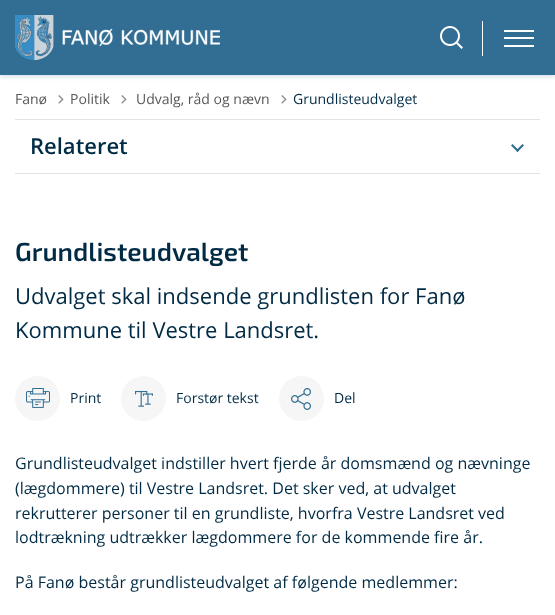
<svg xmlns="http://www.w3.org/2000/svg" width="555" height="615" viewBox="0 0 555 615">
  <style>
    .t1 { font: 14px Open Sans; fill: #575757; }
    .t2 { font: 14px Open Sans; fill: #012b45; }
    .t3 { font: 600 22px Open Sans; fill: #012b45; }
    .t4 { font: 600 26px 'Exo 2'; fill: #012b45; }
    .t5 { font: 22px Open Sans; fill: #012b45; }
    .t6 { font: 16px Open Sans; fill: #012b45; }
  </style>
  <rect width="100%" height="100%" fill="#fff"/>
  <rect x="0" y="2" width="555" height="75" fill="#326e9333" filter="blur(2px)"/>
  <rect x="0" y="0" width="555" height="75" fill="#326e93"/>
  <image x="15" y="15" width="205" height="45" href="images/1.png"/>
  <image x="440" y="26" width="23" height="23" href="images/2.png"/>
  <rect x="482" y="21" width="1" height="35" fill="#fff"/>
  <rect x="504" y="30" width="30" height="2" fill="#fff"/>
  <rect x="504" y="37" width="30" height="2" fill="#fff"/>
  <rect x="504" y="45" width="30" height="2" fill="#fff"/>
  <text x="15" y="104" class="t1">Fanø</text>
  <image x="58" y="95" width="6" height="9" href="images/3.png"/>
  <text x="70" y="104" class="t1">Politik</text>
  <image x="121" y="95" width="6" height="9" href="images/3.png"/>
  <text x="136" y="104" class="t1">Udvalg, råd og nævn</text>
  <image x="281" y="95" width="6" height="9" href="images/3.png"/>
  <text x="293" y="104" class="t2">Grundlisteudvalget</text>
  <rect x="15" y="173" width="525" height="1" fill="#e3e3e3"/>
  <rect x="15" y="119" width="525" height="1" fill="#e3e3e3"/>
  <text x="30" y="154" class="t3">Relateret</text>
  <path d="M524 145.5L517.5 152L516 150.5L522.5 144Z" fill="#326e93"/>
  <path d="M519 150.5L517.5 152L511 145.5L512.5 144Z" fill="#326e93"/>
  <text x="15" y="261" class="t4">Grundlisteudvalget</text>
  <text x="15" y="304" class="t5">Udvalget skal indsende grundlisten for Fanø</text>
  <text x="15" y="338" class="t5">Kommune til Vestre Landsret.</text>
  <circle cx="37.5" cy="398.5" r="22.5" fill="#f6f6f6"/>
  <image x="26" y="388" width="24" height="20" href="images/4.png"/>
  <text x="70" y="403" class="t2">Print</text>
  <circle cx="143.5" cy="398.5" r="22.5" fill="#f6f6f6"/>
  <image x="135" y="390" width="18" height="17" href="images/5.png"/>
  <text x="176" y="403" class="t2">Forstør tekst</text>
  <circle cx="301.5" cy="398.5" r="22.5" fill="#f6f6f6"/>
  <image x="291" y="388" width="20" height="22" href="images/6.png"/>
  <text x="334" y="403" class="t2">Del</text>
  <text x="15" y="469" class="t6">Grundlisteudvalget indstiller hvert fjerde år domsmænd og nævninge</text>
  <text x="15" y="494" class="t6">(lægdommere) til Vestre Landsret. Det sker ved, at udvalget</text>
  <text x="15" y="519" class="t6">rekrutterer personer til en grundliste, hvorfra Vestre Landsret ved</text>
  <text x="15" y="543" class="t6">lodtrækning udtrækker lægdommere for de kommende fire år.</text>
  <text x="15" y="588" class="t6">På Fanø består grundlisteudvalget af følgende medlemmer:</text>
</svg>
